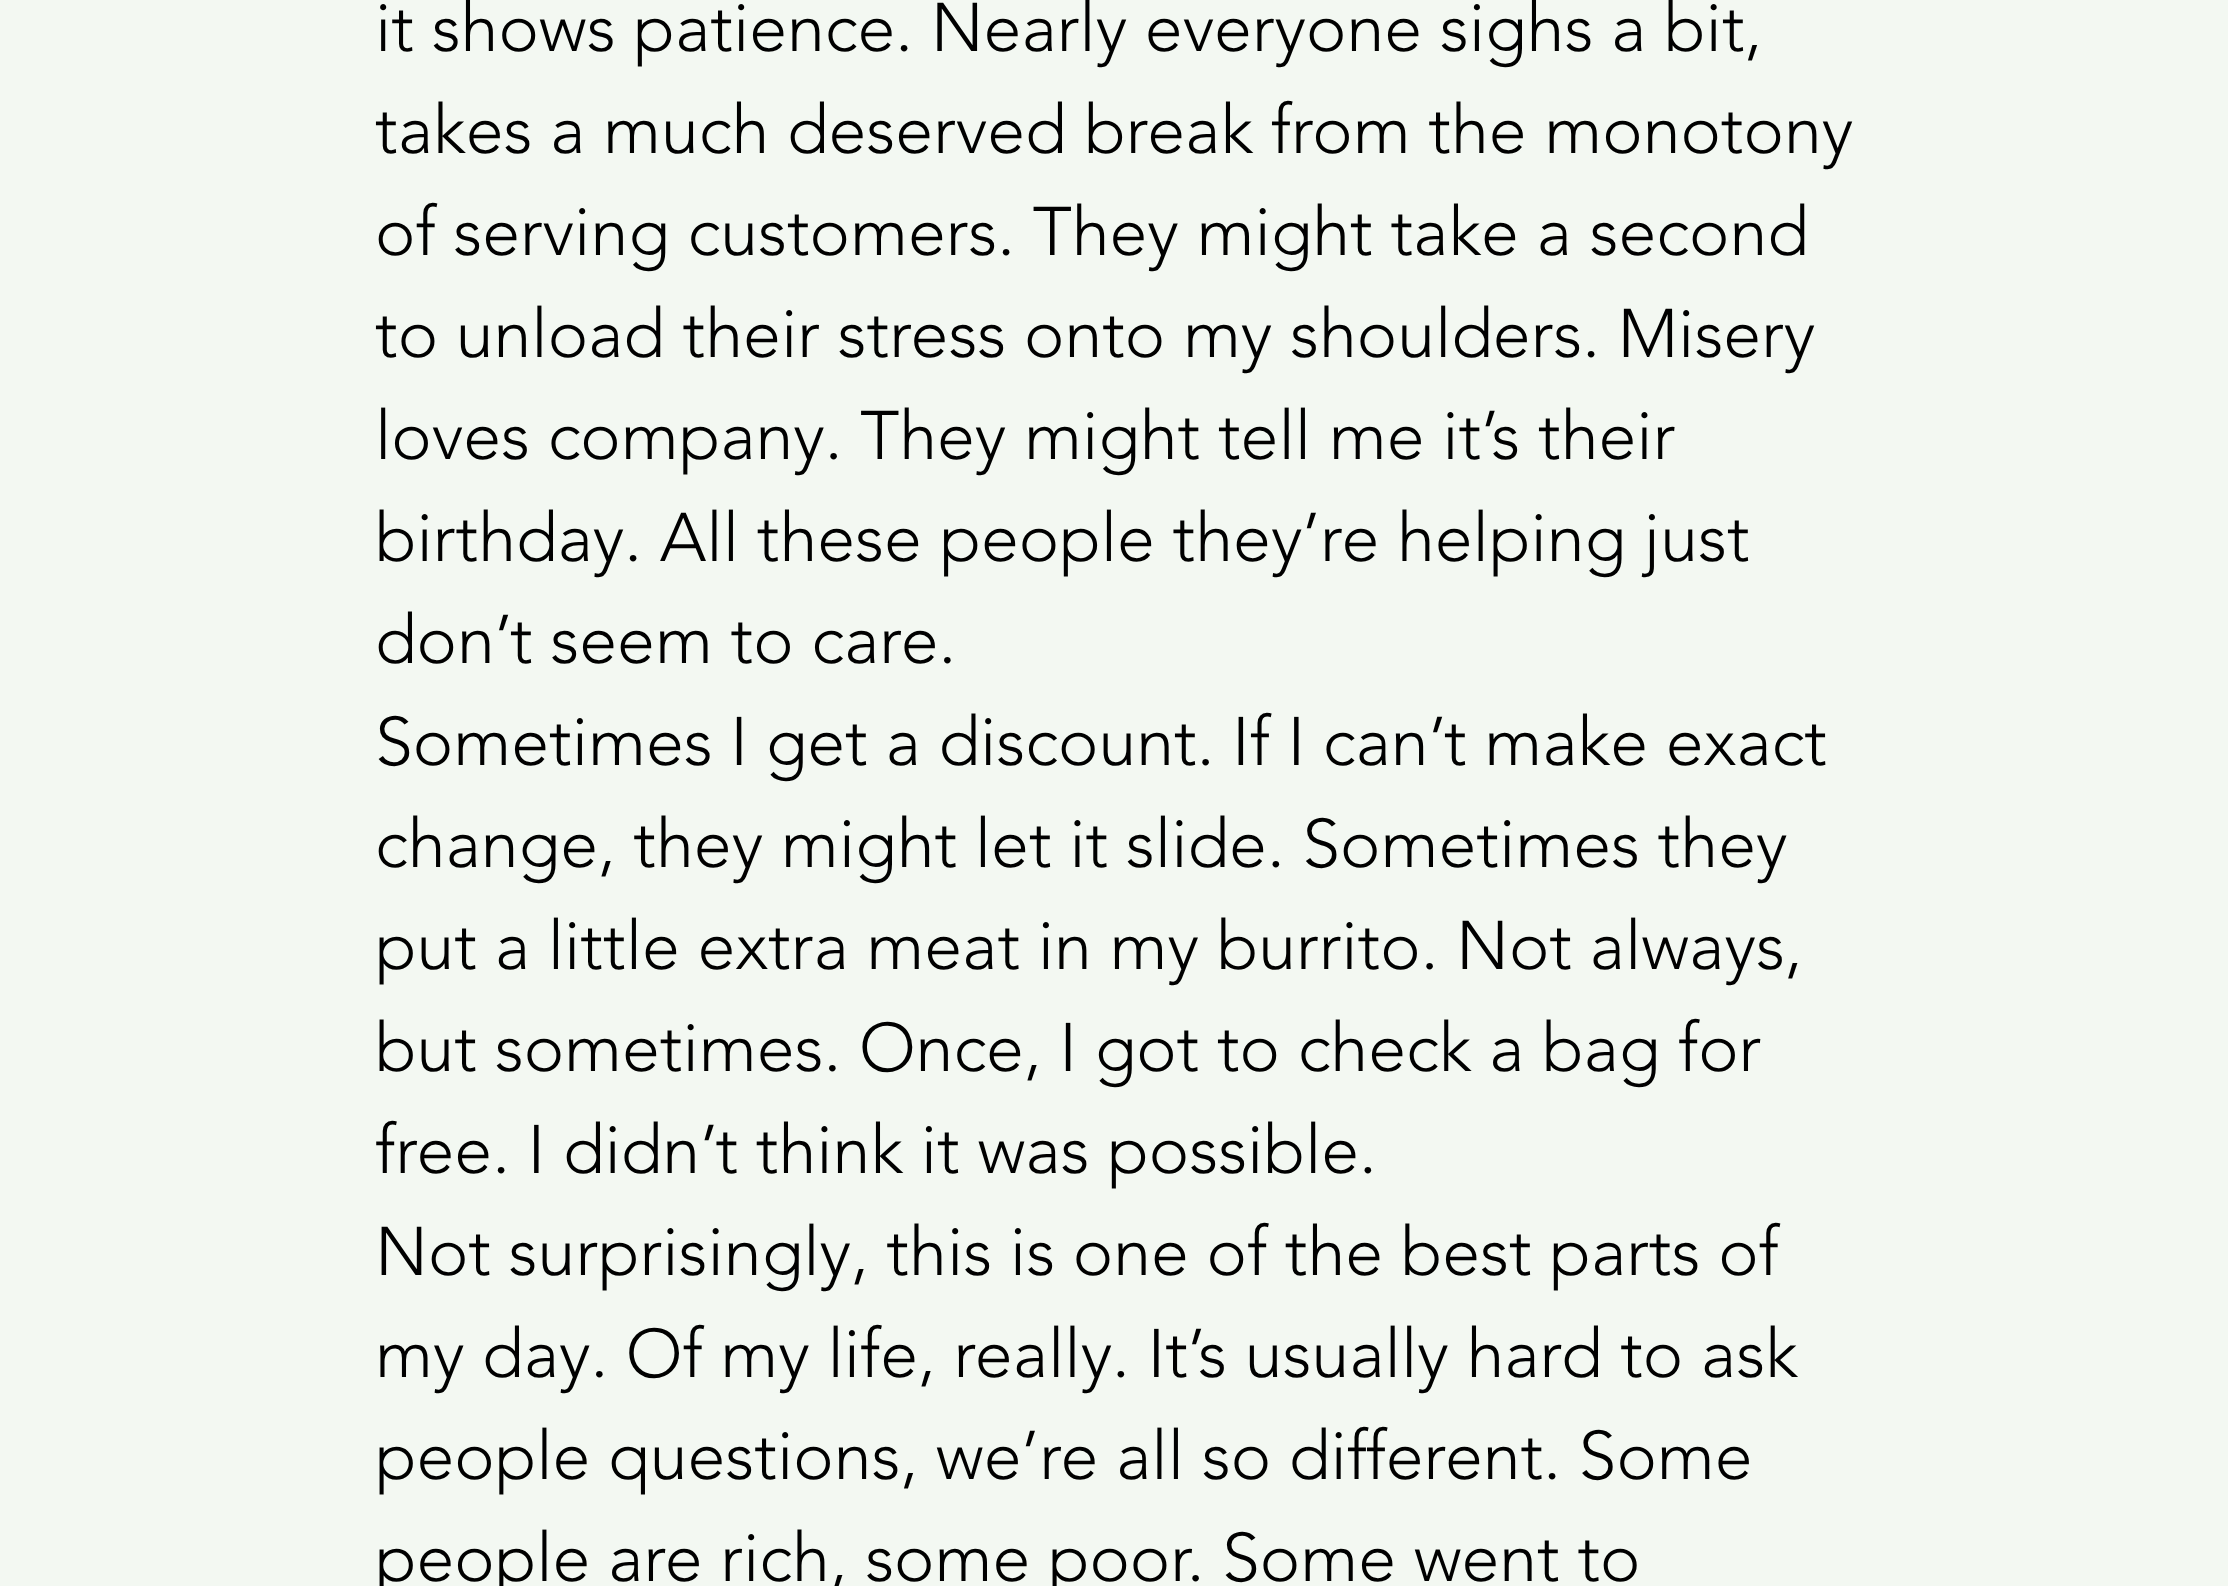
<svg xmlns="http://www.w3.org/2000/svg" width="2228" height="1586" viewBox="0 0 2228 1586">
  <style>
    .t1 { font: 300 68px 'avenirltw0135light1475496'; fill: #000; }
  </style>
  <rect width="100%" height="100%" fill="#f3f8f2"/>
  <text x="375" y="51" class="t1">it shows patience. Nearly everyone sighs a bit,</text>
  <text x="375" y="153" class="t1">takes a much deserved break from the monotony</text>
  <text x="375" y="255" class="t1">of serving customers. They might take a second</text>
  <text x="375" y="357" class="t1">to unload their stress onto my shoulders. Misery</text>
  <text x="375" y="459" class="t1">loves company. They might tell me it’s their</text>
  <text x="375" y="561" class="t1">birthday. All these people they’re helping just</text>
  <text x="375" y="663" class="t1">don’t seem to care.</text>
  <text x="375" y="765" class="t1">Sometimes I get a discount. If I can’t make exact</text>
  <text x="375" y="867" class="t1">change, they might let it slide. Sometimes they</text>
  <text x="375" y="969" class="t1">put a little extra meat in my burrito. Not always,</text>
  <text x="375" y="1071" class="t1">but sometimes. Once, I got to check a bag for</text>
  <text x="375" y="1173" class="t1">free. I didn’t think it was possible.</text>
  <text x="375" y="1275" class="t1">Not surprisingly, this is one of the best parts of</text>
  <text x="375" y="1377" class="t1">my day. Of my life, really. It’s usually hard to ask</text>
  <text x="375" y="1479" class="t1">people questions, we’re all so different. Some</text>
  <text x="375" y="1581" class="t1">people are rich, some poor. Some went to</text>
</svg>
